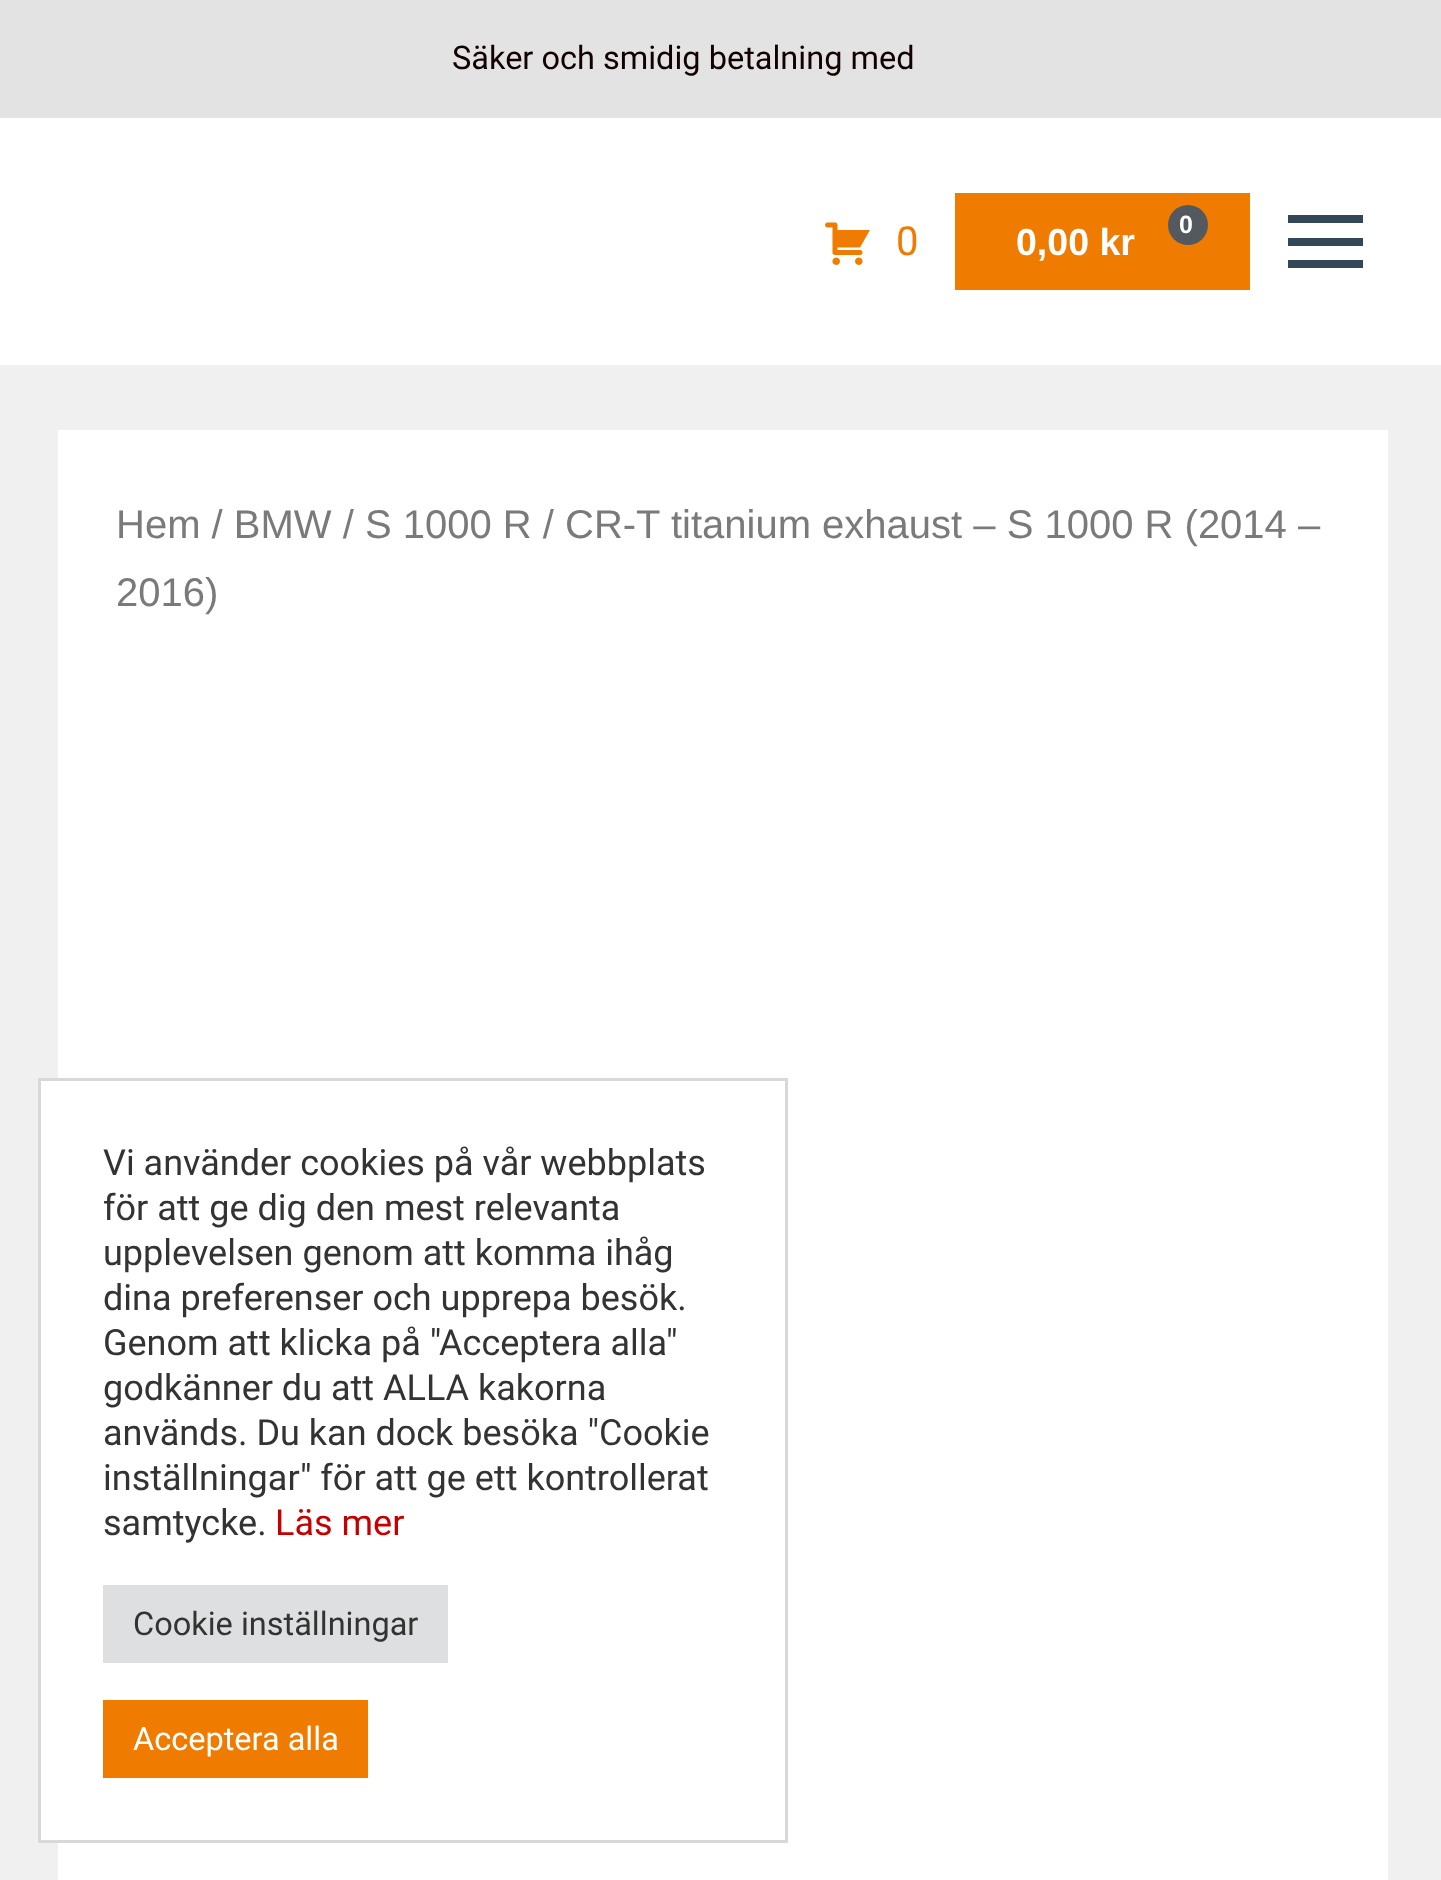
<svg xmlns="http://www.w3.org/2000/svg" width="1441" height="1880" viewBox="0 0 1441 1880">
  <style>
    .t1 { font: 32.5px Roboto; fill: #120101; }
    .t2 { font: 40px Roboto; fill: #ef7c00; }
    .t3 { font: bold 25px Liberation Sans; fill: #fff; }
    .t4 { font: bold 37.5px Liberation Sans; fill: #fff; }
    .t5 { font: 40px Liberation Sans; fill: #7a7a7a; }
    .t6 { font: 36px Roboto; fill: #333; }
    .t7 { font: 36px Roboto; fill: #c50000; }
    .t8 { font: 32.5px Roboto; fill: #333; }
    .t9 { font: 32.5px Roboto; fill: #fff; }
  </style>
  <rect width="100%" height="100%" fill="#f0f0f0"/>
  <rect x="0" y="0" width="1441" height="118" fill="#e3e3e3"/>
  <text x="452" y="69" class="t1">Säker och smidig betalning med</text>
  <rect x="0" y="118" width="1441" height="247" fill="#fff"/>
  <image x="825" y="222" width="45" height="43" href="images/1.png"/>
  <text x="896" y="255" class="t2">0</text>
  <rect x="955" y="193" width="295" height="97" fill="#ef7c00"/>
  <circle cx="1188" cy="225" r="20" fill="#54595f"/>
  <text x="1179" y="233" class="t3">0</text>
  <text x="1016" y="255" class="t4">0,00 kr</text>
  <rect x="1288" y="215" width="75" height="8" fill="#324858"/>
  <rect x="1288" y="238" width="75" height="8" fill="#324858"/>
  <rect x="1288" y="260" width="75" height="8" fill="#324858"/>
  <rect x="58" y="430" width="1330" height="1450" fill="#fff"/>
  <text x="116" y="538" class="t5">Hem / BMW / S 1000 R / CR-T titanium exhaust – S 1000 R (2014 –</text>
  <text x="116" y="606" class="t5">2016)</text>
  <rect x="41" y="1081" width="17" height="759" fill="#fff"/>
  <rect x="39.5" y="1079.5" width="747" height="762" fill="none" stroke="#d8d8d8" stroke-width="3"/>
  <text x="103" y="1175" class="t6">Vi använder cookies på vår webbplats</text>
  <text x="103" y="1220" class="t6">för att ge dig den mest relevanta</text>
  <text x="103" y="1265" class="t6">upplevelsen genom att komma ihåg</text>
  <text x="103" y="1310" class="t6">dina preferenser och upprepa besök.</text>
  <text x="103" y="1355" class="t6">Genom att klicka på "Acceptera alla"</text>
  <text x="103" y="1400" class="t6">godkänner du att ALLA kakorna</text>
  <text x="103" y="1445" class="t6">används. Du kan dock besöka "Cookie</text>
  <text x="103" y="1490" class="t6">inställningar" för att ge ett kontrollerat</text>
  <text x="103" y="1535" class="t6">samtycke.</text>
  <text x="275" y="1535" class="t7">Läs mer</text>
  <rect x="103" y="1585" width="345" height="78" fill="#dedfe0"/>
  <text x="133" y="1635" class="t8">Cookie inställningar</text>
  <rect x="103" y="1700" width="265" height="78" fill="#ef7c00"/>
  <text x="133" y="1750" class="t9">Acceptera alla</text>
</svg>
